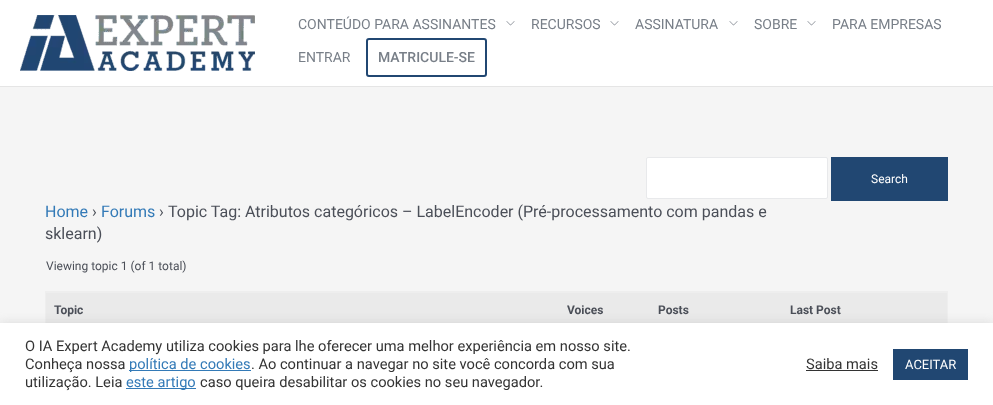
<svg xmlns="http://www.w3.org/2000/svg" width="993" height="405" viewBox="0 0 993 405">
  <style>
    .t1 { font: 14px Roboto; fill: #787f88; }
    .t2 { font: 500 14px Roboto; fill: #787f88; }
    .t3 { font: 12px Roboto; fill: #fff; }
    .t4 { font: 16px Roboto; fill: #337ab7; }
    .t5 { font: 16px Roboto; fill: #4b4f58; }
    .t6 { font: 12px Roboto; fill: #4b4f58; }
    .t7 { font: bold 12px Roboto; fill: #4b4f58; }
    .t8 { font: 14.65px Roboto; fill: #333; }
    .t9 { font: 14.65px Roboto; fill: #337ab7; }
    .t10 { font: 13px Roboto; fill: #fff; }
  </style>
  <rect width="100%" height="100%" fill="#f5f5f5"/>
  <rect x="0" y="0" width="993" height="86" fill="#fff"/>
  <rect x="0" y="86" width="993" height="1" fill="#e5e5e5"/>
  <image x="20" y="15" width="235" height="56" href="images/1.png"/>
  <text x="298" y="29" class="t1">CONTEÚDO PARA ASSINANTES</text>
  <image x="506" y="21" width="9" height="5" href="images/2.png"/>
  <text x="531" y="29" class="t1">RECURSOS</text>
  <image x="610" y="21" width="9" height="5" href="images/2.png"/>
  <text x="635" y="29" class="t1">ASSINATURA</text>
  <image x="729" y="21" width="9" height="5" href="images/2.png"/>
  <text x="754" y="29" class="t1">SOBRE</text>
  <image x="807" y="21" width="9" height="5" href="images/2.png"/>
  <text x="832" y="29" class="t1">PARA EMPRESAS</text>
  <text x="298" y="62" class="t1">ENTRAR</text>
  <rect x="367" y="39" width="119" height="37" rx="2" fill="none" stroke="#214772" stroke-width="2"/>
  <text x="378" y="62" class="t2">MATRICULE-SE</text>
  <rect x="646.5" y="157.5" width="181" height="41" rx="1.5" fill="#fff" stroke="#e8e9eb"/>
  <rect x="831" y="157" width="117" height="44" fill="#214772"/>
  <text x="871" y="183" class="t3">Search</text>
  <text x="45" y="217" class="t4">Home</text>
  <text x="92" y="217" class="t5">›</text>
  <text x="101" y="217" class="t4">Forums</text>
  <text x="159" y="217" class="t5">›</text>
  <text x="168" y="217" class="t5">Topic Tag: Atributos categóricos – LabelEncoder (Pré-processamento com pandas e</text>
  <text x="45" y="239" class="t5">sklearn)</text>
  <text x="46" y="270" class="t6">Viewing topic 1 (of 1 total)</text>
  <rect x="45.5" y="291.5" width="902" height="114" fill="none" stroke="#eee"/>
  <rect x="46" y="293" width="901" height="30" fill="#eaeaea"/>
  <rect x="46" y="292" width="901" height="1" fill="#eee"/>
  <text x="54" y="314" class="t7">Topic</text>
  <text x="567" y="314" class="t7">Voices</text>
  <text x="658" y="314" class="t7">Posts</text>
  <text x="790" y="314" class="t7">Last Post</text>
  <rect x="0" y="322" width="993" height="82" fill="#acabab4d" filter="blur(5px)"/>
  <rect x="0" y="323" width="993" height="82" fill="#fff"/>
  <text x="25" y="351" class="t8">O IA Expert Academy utiliza cookies para lhe oferecer uma melhor experiência em nosso site.</text>
  <text x="25" y="369" class="t8">Conheça nossa</text>
  <rect x="129" y="370" width="122" height="1" fill="#337ab7"/>
  <text x="129" y="369" class="t9">política de cookies</text>
  <text x="251" y="369" class="t8">. Ao continuar a navegar no site você concorda com sua</text>
  <text x="25" y="387" class="t8">utilização. Leia</text>
  <rect x="126" y="388" width="70" height="1" fill="#337ab7"/>
  <text x="126" y="387" class="t9">este artigo</text>
  <text x="200" y="387" class="t8">caso queira desabilitar os cookies no seu navegador.</text>
  <text x="806" y="369" class="t8">Saiba mais</text>
  <rect x="806" y="370" width="72" height="1" fill="#333"/>
  <rect x="893" y="349" width="75" height="31" fill="#214772"/>
  <text x="905" y="369" class="t10">ACEITAR</text>
</svg>
